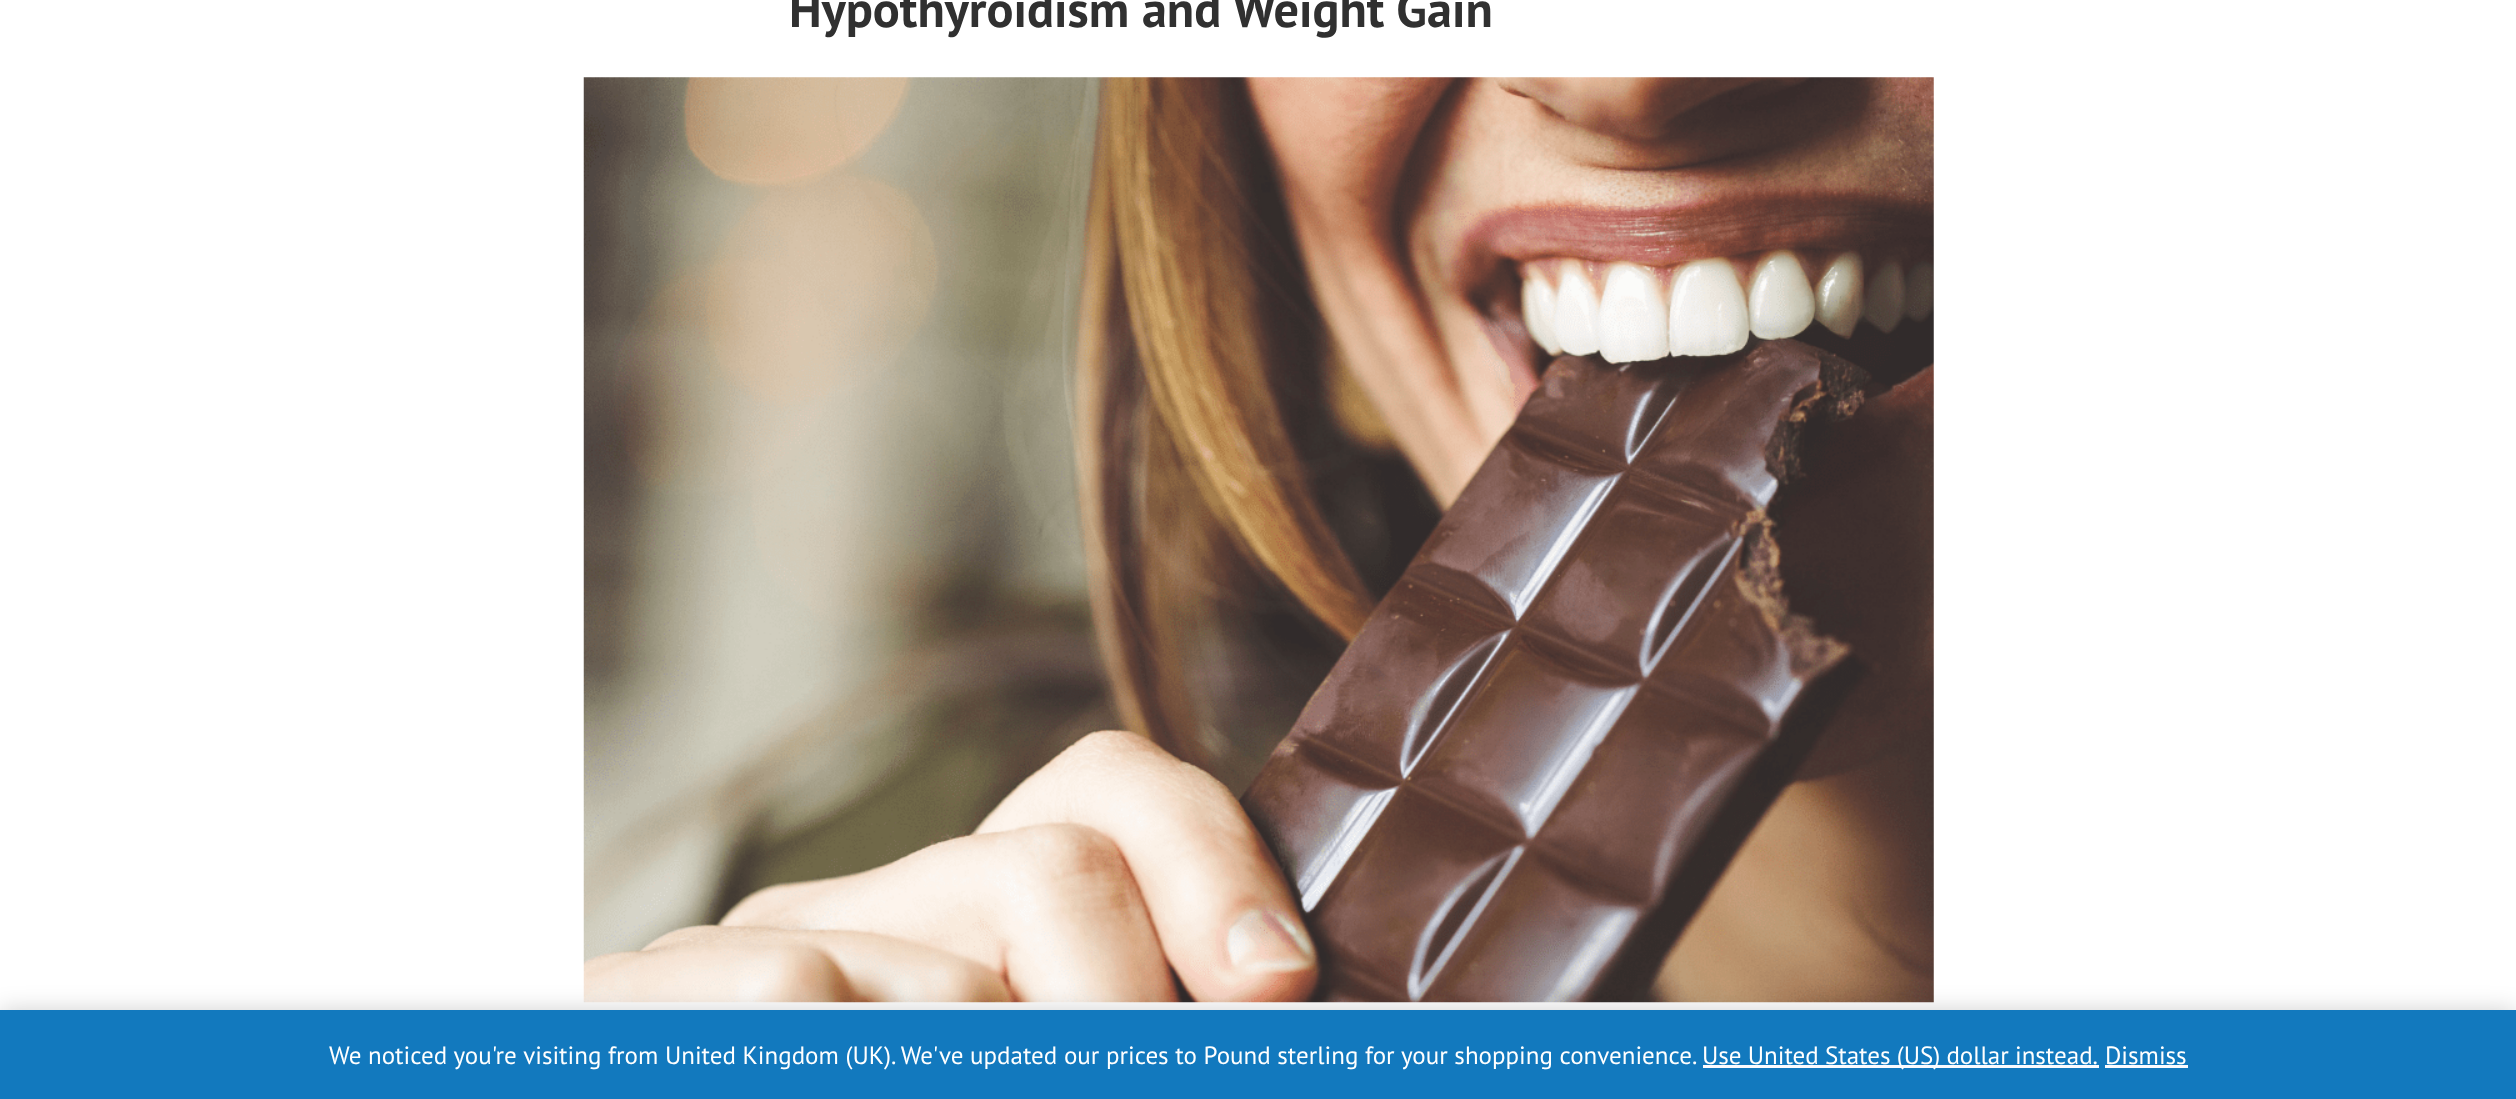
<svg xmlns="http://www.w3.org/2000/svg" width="2516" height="1099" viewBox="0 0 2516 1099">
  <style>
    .t1 { font: bold 50.25px PT Sans; fill: #303030; }
    .t2 { font: 25px PT Sans; fill: #fff; }
  </style>
  <rect width="100%" height="100%" fill="#fff"/>
  <text x="789" y="27" class="t1">Hypothyroidism and Weight Gain</text>
  <image x="583" y="77" width="1351" height="926" href="images/1.png"/>
  <rect x="0" y="1011" width="2516" height="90" fill="#00000033" filter="blur(12.5px)"/>
  <rect x="0" y="1010" width="2516" height="89" fill="#1279be"/>
  <text x="329" y="1064" class="t2">We noticed you're visiting from United Kingdom (UK). We've updated our prices to Pound sterling for your shopping convenience.</text>
  <rect x="1703" y="1065" width="396" height="3" fill="#fcfbfe"/>
  <text x="1702" y="1064" word-spacing="-0.5" class="t2">Use United States (US) dollar instead.</text>
  <text x="2105" y="1064" class="t2">Dismiss</text>
  <rect x="2105" y="1065" width="83" height="3" fill="#fcfbfe"/>
</svg>
